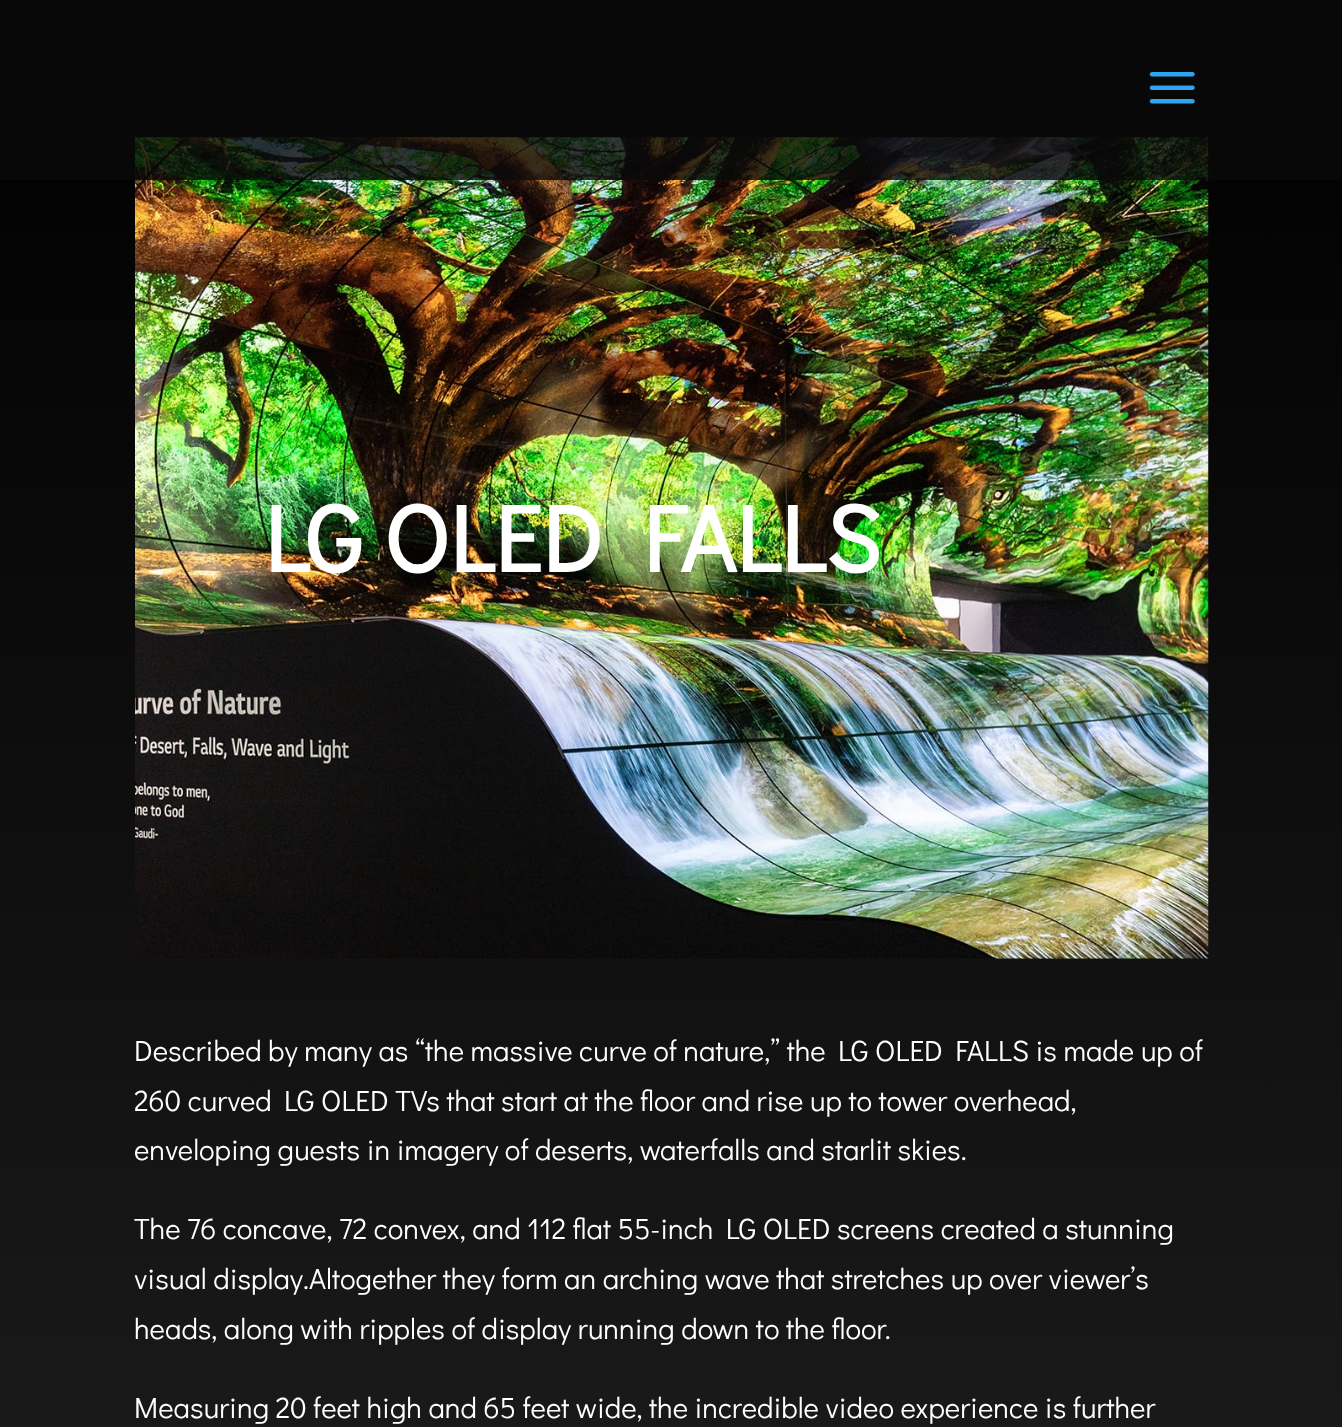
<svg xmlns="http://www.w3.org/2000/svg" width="1342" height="1427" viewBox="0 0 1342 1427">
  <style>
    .t1 { font: bold 94.5px Didact Gothic; fill: #fff; }
    .t2 { font: 29.25px Didact Gothic; fill: #fff; }
  </style>
  <defs>
    <linearGradient id="g1" gradientUnits="userSpaceOnUse" x1="672" y1="0" x2="672" y2="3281"><stop offset="0" stop-color="#000"/><stop offset="1" stop-color="#3a3a3a"/></linearGradient>
  </defs>
  <rect width="100%" height="100%" fill="#fff"/>
  <rect x="0" y="0" width="1342" height="1427" fill="url(#g1)"/>
  <image x="135" y="137" width="1074" height="822" href="images/2.png"/>
  <rect x="0" y="0" width="1342" height="180" fill="#0a0a0acf"/>
  <image x="1149" y="72" width="46" height="32" href="images/1.png"/>
  <text x="264" y="572" class="t1">LG OLED FALLS</text>
  <text x="134" y="1061" class="t2">Described by many as “the massive curve of nature,” the LG OLED FALLS is made up of</text>
  <text x="134" y="1111" class="t2">260 curved LG OLED TVs that start at the floor and rise up to tower overhead,</text>
  <text x="134" y="1160" class="t2">enveloping guests in imagery of deserts, waterfalls and starlit skies.</text>
  <text x="134" y="1239" class="t2">The 76 concave, 72 convex, and 112 flat 55-inch LG OLED screens created a stunning</text>
  <text x="134" y="1289" class="t2">visual display.Altogether they form an arching wave that stretches up over viewer’s</text>
  <text x="134" y="1339" class="t2">heads, along with ripples of display running down to the floor.</text>
  <text x="134" y="1418" class="t2">Measuring 20 feet high and 65 feet wide, the incredible video experience is further</text>
</svg>
